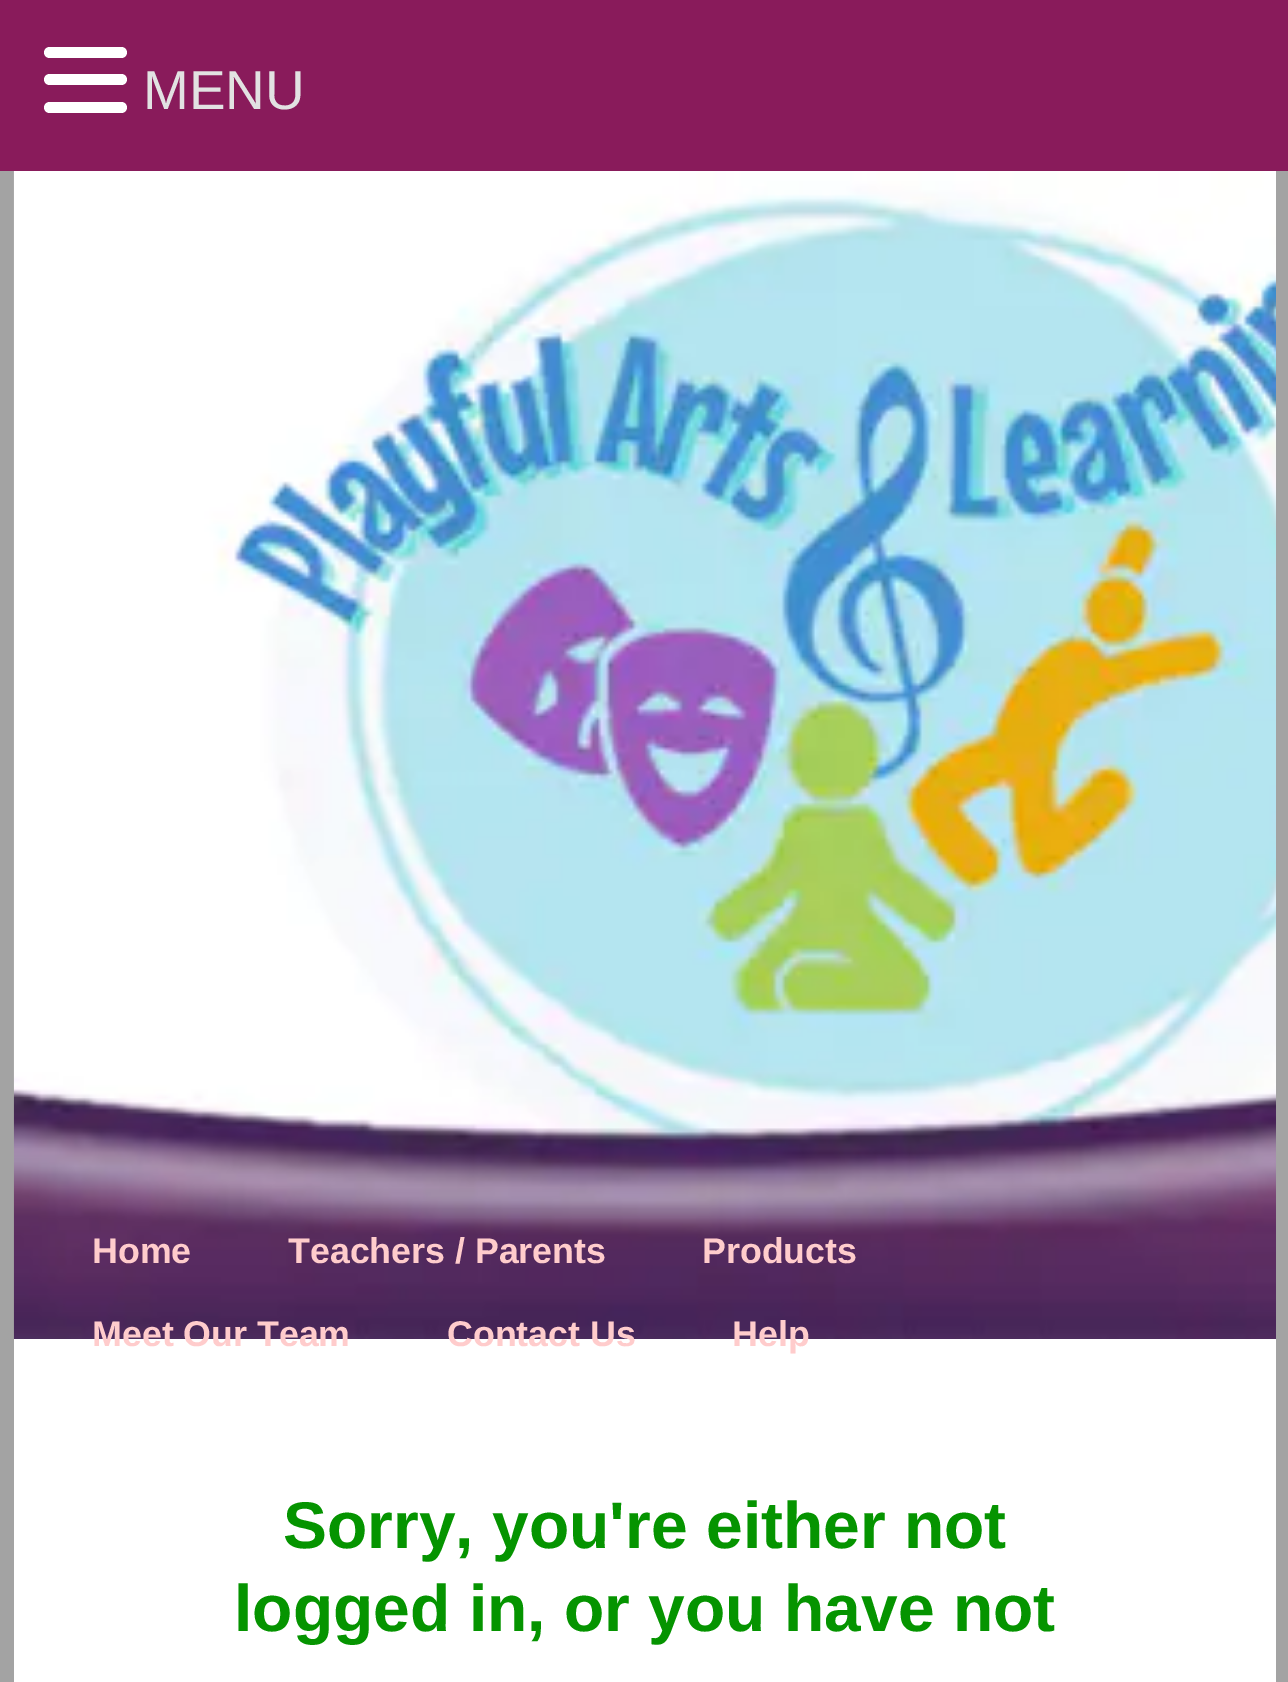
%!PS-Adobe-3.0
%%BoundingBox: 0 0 1288 1682
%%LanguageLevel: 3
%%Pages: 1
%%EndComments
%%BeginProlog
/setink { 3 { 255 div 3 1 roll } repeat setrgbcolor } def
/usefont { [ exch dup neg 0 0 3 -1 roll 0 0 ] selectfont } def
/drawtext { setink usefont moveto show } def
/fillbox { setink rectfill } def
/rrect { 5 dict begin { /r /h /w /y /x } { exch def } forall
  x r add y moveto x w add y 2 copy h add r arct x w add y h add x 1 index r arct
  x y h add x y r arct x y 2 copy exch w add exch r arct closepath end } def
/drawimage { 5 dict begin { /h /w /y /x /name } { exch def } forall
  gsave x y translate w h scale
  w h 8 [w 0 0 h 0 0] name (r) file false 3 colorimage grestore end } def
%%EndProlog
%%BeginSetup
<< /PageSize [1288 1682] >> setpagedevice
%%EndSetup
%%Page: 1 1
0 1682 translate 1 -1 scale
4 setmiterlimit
0 0 1288 1682 163 163 163 fillbox
0 0 1288 171 137 27 91 fillbox
255 255 255 setink
44 47 83 11 5.5 rrect fill
44 74 83 11 5.5 rrect fill
44 102 83 11 5.5 rrect fill
(MENU) 143 109 /LiberationSans-Regular 55 226 226 226 drawtext
(assets/img1.rgb) 13 171 1263 1168 drawimage
(Home) 92 1263 /LiberationSans-Bold 35.75 255 204 204 drawtext
(Teachers / Parents) 288 1263 /LiberationSans-Bold 35.75 255 204 204 drawtext
(Products) 702 1263 /LiberationSans-Bold 35.75 255 204 204 drawtext
14 1339 1262 343 255 255 255 fillbox
(Meet Our Team) 92 1346 /LiberationSans-Bold 35.75 255 204 204 drawtext
(Contact Us) 447 1346 /LiberationSans-Bold 35.75 255 204 204 drawtext
(Help) 732 1346 /LiberationSans-Bold 35.75 255 204 204 drawtext
(Sorry, you're either not) 283 1548 /LiberationSans-Bold 66 5 148 0 drawtext
(logged in, or you have not) 234 1631 /LiberationSans-Bold 66 5 148 0 drawtext
showpage
%%EOF
